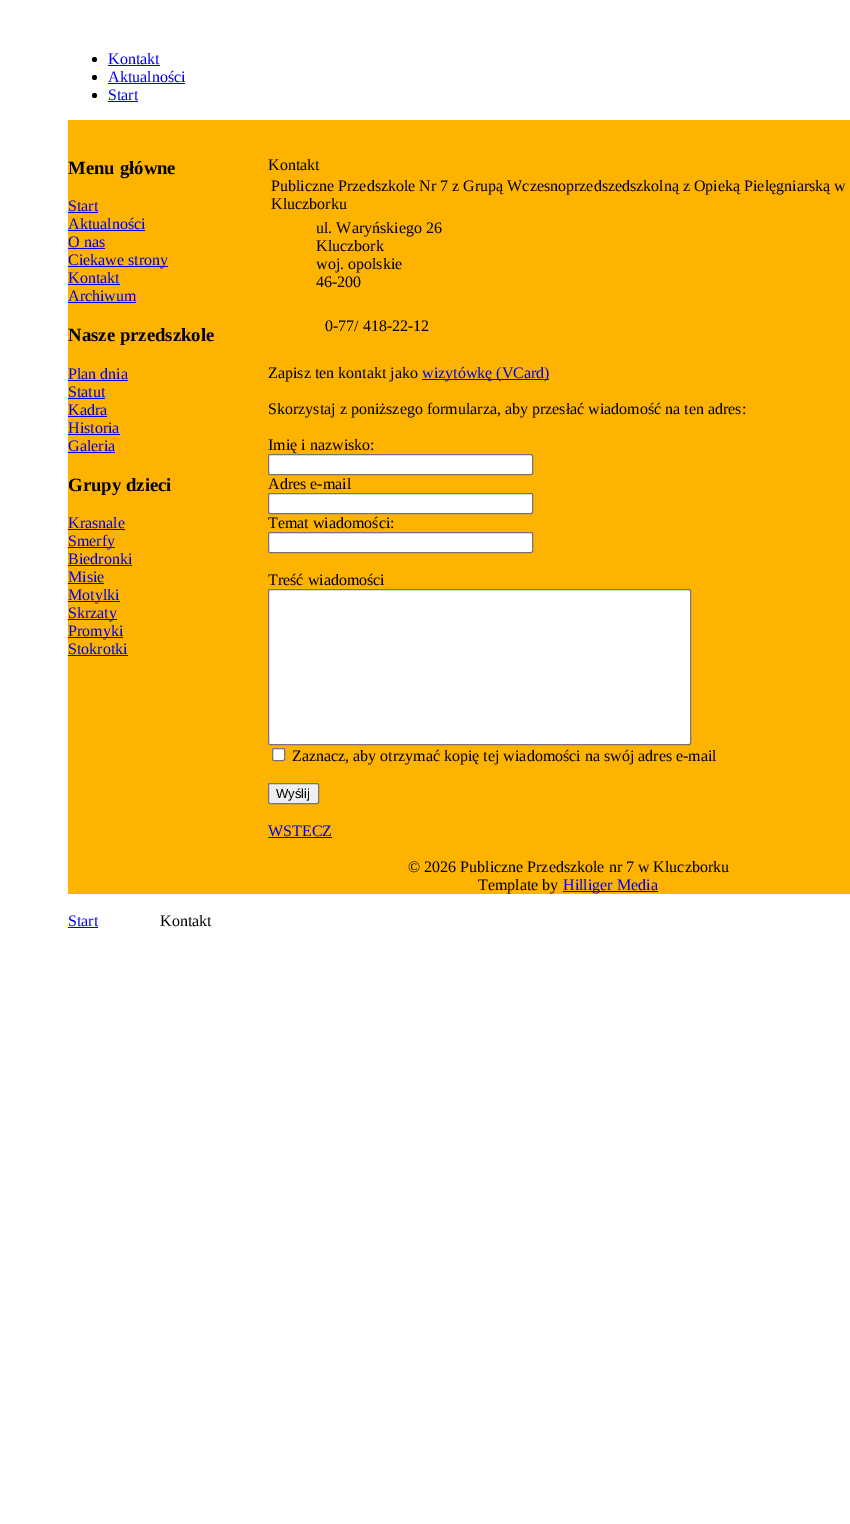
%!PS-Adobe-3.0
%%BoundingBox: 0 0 850 1524
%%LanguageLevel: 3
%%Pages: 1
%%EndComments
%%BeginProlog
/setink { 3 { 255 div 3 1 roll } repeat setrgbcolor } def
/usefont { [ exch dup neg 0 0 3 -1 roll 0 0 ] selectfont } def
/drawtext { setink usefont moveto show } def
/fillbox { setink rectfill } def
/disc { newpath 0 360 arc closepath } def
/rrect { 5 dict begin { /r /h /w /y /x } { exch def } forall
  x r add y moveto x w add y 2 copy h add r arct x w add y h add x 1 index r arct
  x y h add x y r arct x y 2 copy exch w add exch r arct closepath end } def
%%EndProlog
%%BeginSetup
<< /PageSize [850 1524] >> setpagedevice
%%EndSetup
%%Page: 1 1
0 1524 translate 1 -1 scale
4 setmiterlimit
0 0 850 1524 255 255 255 fillbox
0 0 0 setink
94.5 59.5 2.5 disc fill
(Kontakt) 108 64 /LiberationSerif-Regular 16 0 0 238 drawtext
108 65 52 1 0 0 238 fillbox
0 0 0 setink
94.5 77.5 2.5 disc fill
(Aktualności) 108 82 /LiberationSerif-Regular 16 0 0 238 drawtext
108 83 77 1 0 0 238 fillbox
0 0 0 setink
94.5 95.5 2.5 disc fill
(Start) 108 100 /LiberationSerif-Regular 16 0 0 238 drawtext
108 101 30 1 0 0 238 fillbox
68 120 782 774 255 179 1 fillbox
(Menu główne) 68 174 /LiberationSerif-Bold 18.75 0 0 0 drawtext
(Start) 68 211 /LiberationSerif-Regular 16 0 0 238 drawtext
68 212 30 1 0 0 238 fillbox
(Aktualności) 68 229 /LiberationSerif-Regular 16 0 0 238 drawtext
68 230 77 1 0 0 238 fillbox
(O nas) 68 247 /LiberationSerif-Regular 16 0 0 238 drawtext
68 248 37 1 0 0 238 fillbox
68 266 100 1 0 0 238 fillbox
(Ciekawe strony) 68 265 /LiberationSerif-Regular 16 0 0 238 drawtext
(Kontakt) 68 283 /LiberationSerif-Regular 16 0 0 238 drawtext
68 284 52 1 0 0 238 fillbox
(Archiwum) 68 301 /LiberationSerif-Regular 16 0 0 238 drawtext
68 302 68 1 0 0 238 fillbox
(Nasze przedszkole) 68 341 /LiberationSerif-Bold 18.75 0 0 0 drawtext
(Plan dnia) 68 379 /LiberationSerif-Regular 16 0 0 238 drawtext
68 380 60 1 0 0 238 fillbox
(Statut) 68 397 /LiberationSerif-Regular 16 0 0 238 drawtext
68 398 37 1 0 0 238 fillbox
(Kadra) 68 415 /LiberationSerif-Regular 16 0 0 238 drawtext
68 416 39 1 0 0 238 fillbox
(Historia) 68 433 /LiberationSerif-Regular 16 0 0 238 drawtext
68 434 52 1 0 0 238 fillbox
(Galeria) 68 451 /LiberationSerif-Regular 16 0 0 238 drawtext
68 452 47 1 0 0 238 fillbox
(Grupy dzieci) 68 491 /LiberationSerif-Bold 18.75 0 0 0 drawtext
(Krasnale) 68 528 /LiberationSerif-Regular 16 0 0 238 drawtext
68 529 57 1 0 0 238 fillbox
68 547 47 1 0 0 238 fillbox
(Smerfy) 68 546 /LiberationSerif-Regular 16 0 0 238 drawtext
(Biedronki) 68 564 /LiberationSerif-Regular 16 0 0 238 drawtext
68 565 64 1 0 0 238 fillbox
(Misie) 68 582 /LiberationSerif-Regular 16 0 0 238 drawtext
68 583 36 1 0 0 238 fillbox
68 601 52 1 0 0 238 fillbox
(Motylki) 68 600 /LiberationSerif-Regular 16 0 0 238 drawtext
68 619 49 1 0 0 238 fillbox
(Skrzaty) 68 618 /LiberationSerif-Regular 16 0 0 238 drawtext
68 637 55 1 0 0 238 fillbox
(Promyki) 68 636 /LiberationSerif-Regular 16 0 0 238 drawtext
(Stokrotki) 68 654 /LiberationSerif-Regular 16 0 0 238 drawtext
68 655 60 1 0 0 238 fillbox
(Kontakt) 268 170 /LiberationSerif-Regular 16 0 0 0 drawtext
(Publiczne Przedszkole Nr 7 z Grupą Wczesnoprzedszedszkolną z Opieką Pielęgniarską w) 271 191 /LiberationSerif-Regular 16 0 0 0 drawtext
(Kluczborku) 271 209 /LiberationSerif-Regular 16 0 0 0 drawtext
(ul. Waryńskiego 26) 316 233 /LiberationSerif-Regular 16 0 0 0 drawtext
(Kluczbork) 316 251 /LiberationSerif-Regular 16 0 0 0 drawtext
(woj. opolskie) 316 269 /LiberationSerif-Regular 16 0 0 0 drawtext
(46-200) 316 287 /LiberationSerif-Regular 16 0 0 0 drawtext
(0-77/ 418-22-12) 325 331 /LiberationSerif-Regular 16 0 0 0 drawtext
(Zapisz ten kontakt jako) 268 378 /LiberationSerif-Regular 16 0 0 0 drawtext
422 379 127 1 0 0 238 fillbox
(wizytówkę \(VCard\)) 422 378 /LiberationSerif-Regular 16 0 0 238 drawtext
(Skorzystaj z poniższego formularza, aby przesłać wiadomość na ten adres:) 268 414 /LiberationSerif-Regular 16 0 0 0 drawtext
(Imię i nazwisko:) 268 450 /LiberationSerif-Regular 16 0 0 0 drawtext
255 255 255 setink
268.5 454.5 264 20 1.5 rrect gsave fill grestore
118 118 118 setink
stroke
(Adres e-mail) 268 489 /LiberationSerif-Regular 16 0 0 0 drawtext
255 255 255 setink
268.5 493.5 264 20 1.5 rrect gsave fill grestore
118 118 118 setink
stroke
(Temat wiadomości:) 268 528 /LiberationSerif-Regular 16 0 0 0 drawtext
255 255 255 setink
268.5 532.5 264 20 1.5 rrect gsave fill grestore
118 118 118 setink
stroke
(Treść wiadomości) 268 585 /LiberationSerif-Regular 16 0 0 0 drawtext
255 255 255 setink
268.5 589.5 422 155 1.5 rrect gsave fill grestore
118 118 118 setink
stroke
255 255 255 setink
272.5 748.5 12 12 1.5 rrect gsave fill grestore
118 118 118 setink
stroke
(Zaznacz, aby otrzymać kopię tej wiadomości na swój adres e-mail) 292 761 /LiberationSerif-Regular 16 0 0 0 drawtext
239 239 239 setink
268.5 783.5 50 20 1.5 rrect gsave fill grestore
118 118 118 setink
stroke
(Wyślij) 276 798 /LiberationSans-Regular 13 0 0 0 drawtext
(WSTECZ) 268 836 /LiberationSerif-Regular 16 0 0 238 drawtext
268 837 64 1 0 0 238 fillbox
(© 2026 Publiczne Przedszkole nr 7 w Kluczborku) 408 872 /LiberationSerif-Regular 16 0 0 0 drawtext
(Template by) 478 890 /LiberationSerif-Regular 16 0 0 0 drawtext
563 891 95 1 0 0 238 fillbox
(Hilliger Media) 563 890 /LiberationSerif-Regular 16 0 0 238 drawtext
(Start) 68 926 /LiberationSerif-Regular 16 0 0 238 drawtext
68 927 30 1 0 0 238 fillbox
(Kontakt) 160 926 /LiberationSerif-Regular 16 0 0 0 drawtext
showpage
%%EOF
